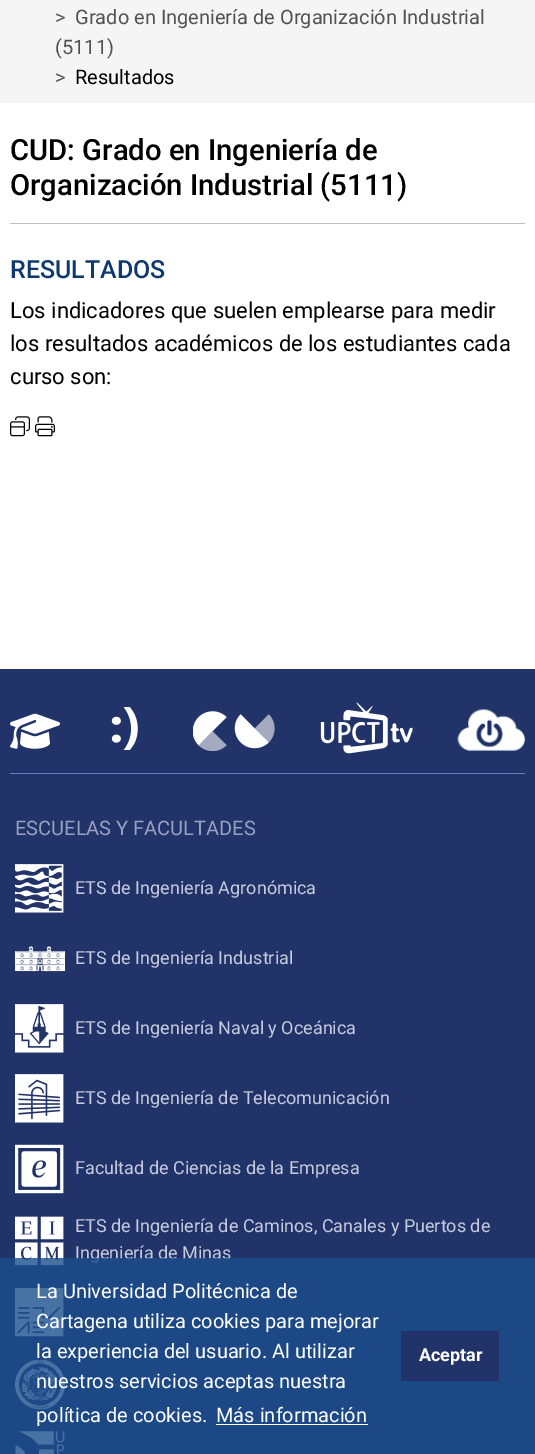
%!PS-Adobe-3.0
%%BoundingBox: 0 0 535 1454
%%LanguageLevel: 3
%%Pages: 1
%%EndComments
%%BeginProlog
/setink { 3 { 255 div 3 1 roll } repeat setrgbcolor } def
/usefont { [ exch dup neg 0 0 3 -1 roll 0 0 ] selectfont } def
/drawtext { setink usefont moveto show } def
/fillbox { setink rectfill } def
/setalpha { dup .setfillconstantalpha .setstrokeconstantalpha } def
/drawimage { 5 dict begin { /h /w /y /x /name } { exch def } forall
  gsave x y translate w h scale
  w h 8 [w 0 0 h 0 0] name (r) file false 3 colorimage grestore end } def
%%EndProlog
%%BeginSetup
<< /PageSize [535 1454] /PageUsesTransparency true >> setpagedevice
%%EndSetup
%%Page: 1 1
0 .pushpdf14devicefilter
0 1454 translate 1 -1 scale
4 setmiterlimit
0 0 535 1454 255 255 255 fillbox
0 0 535 103 245 245 245 fillbox
(>) 55 24 /Roboto-Regular 20 86 89 92 drawtext
(Grado en Ingeniería de Organización Industrial) 75 24 /Roboto-Regular 20 82 82 82 drawtext
(\(5111\)) 55 54 /Roboto-Regular 20 82 82 82 drawtext
(>) 55 84 /Roboto-Regular 20 86 89 92 drawtext
(Resultados) 75 84 /Roboto-Regular 20 0 0 0 drawtext
(CUD: Grado en Ingeniería de) 10 160 /Roboto-Medium 29.25 0 0 0 drawtext
(Organización Industrial \(5111\)) 10 195 /Roboto-Medium 29.25 0 0 0 drawtext
10 223 515 1 191 191 191 fillbox
(RESULTADOS) 10 278 /Roboto-Medium 25 14 57 111 drawtext
(Los indicadores que suelen emplearse para medir) 10 318 /Roboto-Regular 22 0 0 0 drawtext
(los resultados académicos de los estudiantes cada) 10 351 /Roboto-Regular 22 0 0 0 drawtext
(curso son:) 10 384 /Roboto-Regular 22 0 0 0 drawtext
(assets/img1.rgb) 10 416 20 21 drawimage
(assets/img2.rgb) 35 416 20 21 drawimage
0 669 535 785 34 51 105 fillbox
10 773 515 1 105 127 197 fillbox
(assets/img3.rgb) 10 713 50 36 drawimage
(assets/img4.rgb) 111 707 27 43 drawimage
(assets/img5.rgb) 193 711 82 40 drawimage
(assets/img6.rgb) 320 702 93 52 drawimage
(assets/img7.rgb) 457 709 68 42 drawimage
(ESCUELAS Y FACULTADES) 15 835 /Roboto-Regular 20 152 161 191 drawtext
(assets/img8.rgb) 15 864 49 49 drawimage
(ETS de Ingeniería Agronómica) 75 894 /Roboto-Regular 18 197 203 220 drawtext
(assets/img9.rgb) 15 946 50 26 drawimage
(ETS de Ingeniería Industrial) 75 964 /Roboto-Regular 18 197 203 220 drawtext
(assets/img10.rgb) 15 1004 49 49 drawimage
(ETS de Ingeniería Naval y Oceánica) 75 1034 /Roboto-Regular 18 197 203 220 drawtext
(assets/img11.rgb) 15 1074 49 49 drawimage
(ETS de Ingeniería de Telecomunicación) 75 1104 /Roboto-Regular 18 197 203 220 drawtext
(assets/img12.rgb) 15 1144 49 50 drawimage
(Facultad de Ciencias de la Empresa) 75 1174 /Roboto-Regular 18 197 203 220 drawtext
(assets/img13.rgb) 15 1216 49 50 drawimage
(ETS de Ingeniería de Caminos, Canales y Puertos de) 75 1232 /Roboto-Regular 18 197 203 220 drawtext
(Ingeniería de Minas) 75 1259 /Roboto-Regular 18 197 203 220 drawtext
(assets/img14.rgb) 15 1288 49 49 drawimage
(assets/img15.rgb) 15 1360 50 50 drawimage
(assets/img16.rgb) 15 1431 50 23 drawimage
0.8 setalpha
0 1258 535 196 26 77 141 fillbox
1 setalpha
(La Universidad Politécnica de) 36 1298 /Roboto-Regular 20 255 255 255 drawtext
(Cartagena utiliza cookies para mejorar) 36 1328 /Roboto-Regular 20 255 255 255 drawtext
(la experiencia del usuario. Al utilizar) 36 1358 /Roboto-Regular 20 255 255 255 drawtext
(nuestros servicios aceptas nuestra) 36 1388 /Roboto-Regular 20 255 255 255 drawtext
(política de cookies.) 36 1422 /Roboto-Regular 20 255 255 255 drawtext
(Más información) 216 1422 /Roboto-Regular 20 255 255 255 drawtext
216 1424 152 1 255 255 255 fillbox
401 1331 98 50 34 51 105 fillbox
(Aceptar) 419 1361 /Roboto-Bold 18 255 255 255 drawtext
.poppdf14devicefilter showpage
%%EOF
